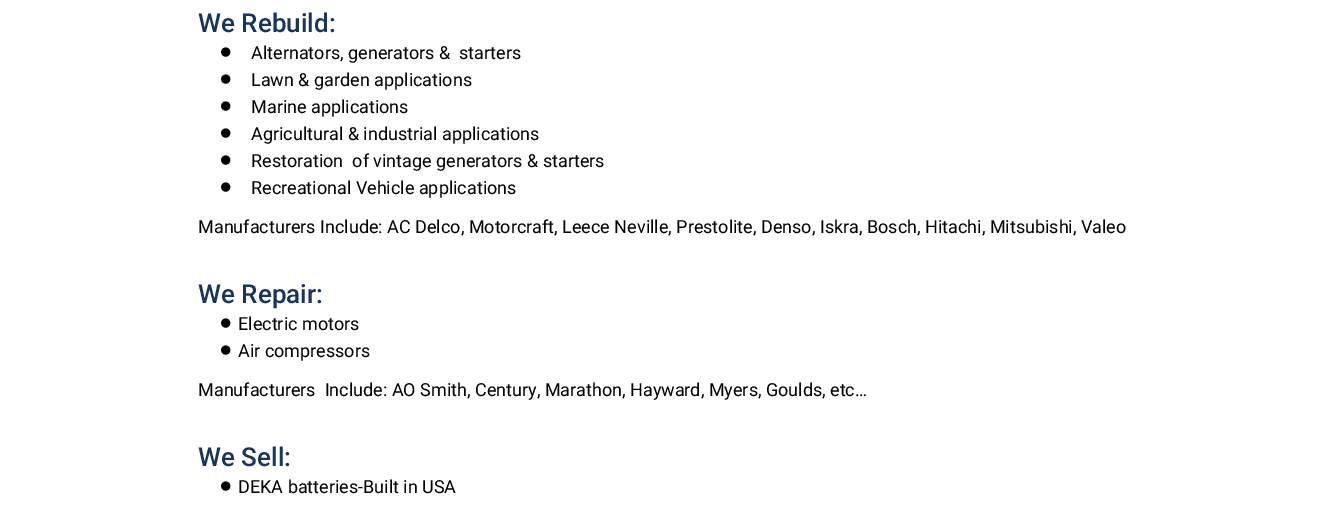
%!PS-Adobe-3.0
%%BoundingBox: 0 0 1336 505
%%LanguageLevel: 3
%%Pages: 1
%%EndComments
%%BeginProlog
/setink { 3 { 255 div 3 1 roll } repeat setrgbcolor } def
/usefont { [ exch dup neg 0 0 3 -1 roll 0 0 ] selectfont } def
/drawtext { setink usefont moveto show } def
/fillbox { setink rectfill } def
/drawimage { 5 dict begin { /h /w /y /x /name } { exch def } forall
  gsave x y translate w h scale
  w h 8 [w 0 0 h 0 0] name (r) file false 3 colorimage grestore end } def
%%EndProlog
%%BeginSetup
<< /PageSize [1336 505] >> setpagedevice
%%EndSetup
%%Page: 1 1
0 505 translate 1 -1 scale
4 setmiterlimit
0 0 1336 505 255 255 255 fillbox
(We Rebuild:) 198 32 /Roboto-Medium 26 25 53 89 drawtext
(assets/img1.rgb) 221 47 10 10 drawimage
(Alternators, generators &  starters) 251 59 /Roboto-Regular 18 0 0 0 drawtext
(assets/img1.rgb) 221 74 10 10 drawimage
(Lawn & garden applications) 251 86 /Roboto-Regular 18 0 0 0 drawtext
(assets/img1.rgb) 221 101 10 10 drawimage
(Marine applications) 251 113 /Roboto-Regular 18 0 0 0 drawtext
(assets/img1.rgb) 221 128 10 10 drawimage
(Agricultural & industrial applications) 251 140 /Roboto-Regular 18 0 0 0 drawtext
(assets/img1.rgb) 221 155 10 10 drawimage
(Restoration  of vintage generators & starters) 251 167 /Roboto-Regular 18 0 0 0 drawtext
(assets/img1.rgb) 221 182 10 10 drawimage
(Recreational Vehicle applications) 251 194 /Roboto-Regular 18 0 0 0 drawtext
(Manufacturers Include: AC Delco, Motorcraft, Leece Neville, Prestolite, Denso, Iskra, Bosch, Hitachi, Mitsubishi, Valeo) 198 233 /Roboto-Regular 18 0 0 0 drawtext
(We Repair:) 198 303 /Roboto-Medium 26 25 53 89 drawtext
(assets/img1.rgb) 221 318 10 10 drawimage
(Electric motors) 238 330 /Roboto-Regular 18 0 0 0 drawtext
(assets/img1.rgb) 221 345 10 10 drawimage
(Air compressors) 238 357 /Roboto-Regular 18 0 0 0 drawtext
(Manufacturers  Include: AO Smith, Century, Marathon, Hayward, Myers, Goulds, etc…) 198 396 /Roboto-Regular 18 0 0 0 drawtext
(We Sell:) 198 466 /Roboto-Medium 26 25 53 89 drawtext
(assets/img1.rgb) 221 481 10 10 drawimage
(DEKA batteries-Built in USA) 238 493 /Roboto-Regular 18 0 0 0 drawtext
showpage
%%EOF
